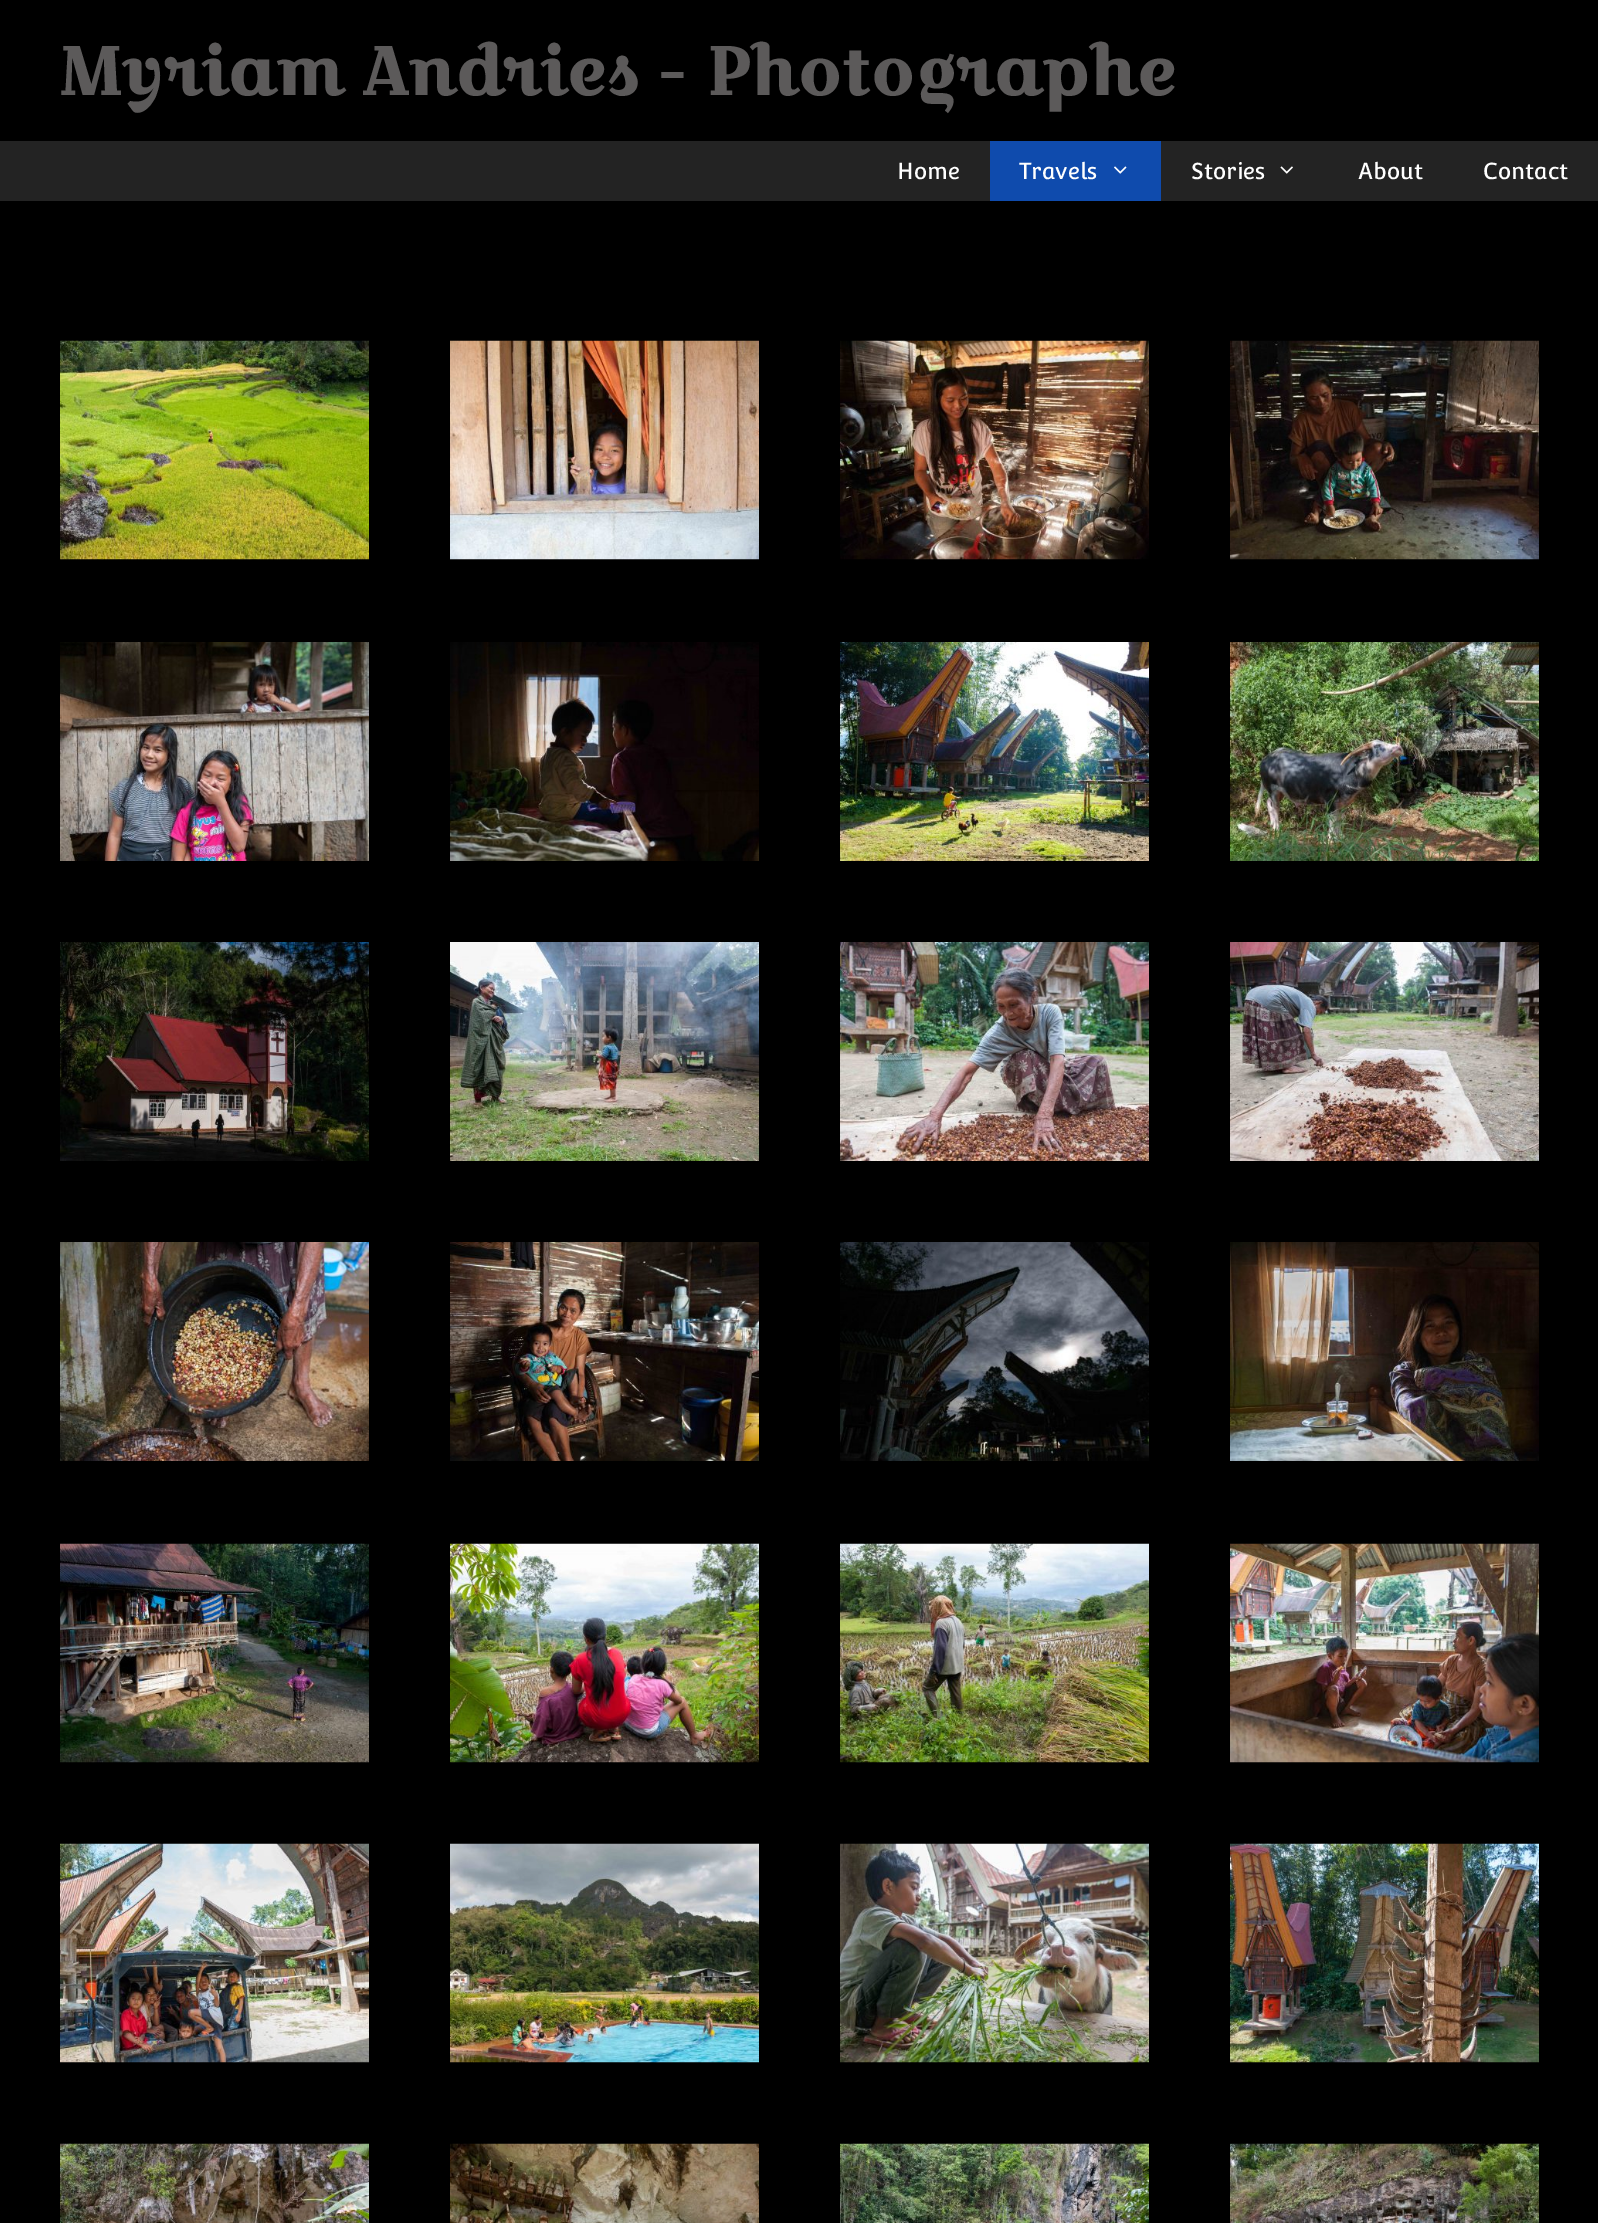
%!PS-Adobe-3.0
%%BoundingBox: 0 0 1598 2223
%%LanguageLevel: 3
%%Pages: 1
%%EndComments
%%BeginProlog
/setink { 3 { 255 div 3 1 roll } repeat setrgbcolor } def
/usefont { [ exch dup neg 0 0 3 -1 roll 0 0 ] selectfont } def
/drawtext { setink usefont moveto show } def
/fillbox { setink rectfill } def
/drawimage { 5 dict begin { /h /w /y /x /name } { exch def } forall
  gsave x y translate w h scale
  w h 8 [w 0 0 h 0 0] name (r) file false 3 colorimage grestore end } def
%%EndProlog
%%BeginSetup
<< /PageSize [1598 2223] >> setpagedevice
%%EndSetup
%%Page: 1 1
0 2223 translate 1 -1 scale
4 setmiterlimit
0 0 1598 2223 0 0 0 fillbox
(Myriam Andries - Photographe) 60 95 /CroissantOne-Bold 67.5 92 90 90 drawtext
0 141 1598 60 35 35 35 fillbox
(Home) 897 179 /Convergence-Regular 22.5 255 255 255 drawtext
990 141 171 60 15 75 173 fillbox
(Travels) 1019 179 /Convergence-Regular 22.5 255 255 255 drawtext
(assets/img1.rgb) 1114 166 13 8 drawimage
(Stories) 1191 179 /Convergence-Regular 22.5 255 255 255 drawtext
(assets/img2.rgb) 1280 166 13 8 drawimage
(About) 1358 179 /Convergence-Regular 22.5 255 255 255 drawtext
(Contact) 1483 179 /Convergence-Regular 22.5 255 255 255 drawtext
(assets/img3.rgb) 60 340 309 220 drawimage
(assets/img4.rgb) 450 340 309 220 drawimage
(assets/img5.rgb) 840 340 309 220 drawimage
(assets/img6.rgb) 1230 340 309 220 drawimage
(assets/img7.rgb) 60 642 309 219 drawimage
(assets/img8.rgb) 450 642 309 219 drawimage
(assets/img9.rgb) 840 642 309 219 drawimage
(assets/img10.rgb) 1230 642 309 219 drawimage
(assets/img11.rgb) 60 942 309 219 drawimage
(assets/img12.rgb) 450 942 309 219 drawimage
(assets/img13.rgb) 840 942 309 219 drawimage
(assets/img14.rgb) 1230 942 309 219 drawimage
(assets/img15.rgb) 60 1242 309 219 drawimage
(assets/img16.rgb) 450 1242 309 219 drawimage
(assets/img17.rgb) 840 1242 309 219 drawimage
(assets/img18.rgb) 1230 1242 309 219 drawimage
(assets/img19.rgb) 60 1543 309 220 drawimage
(assets/img20.rgb) 450 1543 309 220 drawimage
(assets/img21.rgb) 840 1543 309 220 drawimage
(assets/img22.rgb) 1230 1543 309 220 drawimage
(assets/img23.rgb) 60 1843 309 220 drawimage
(assets/img24.rgb) 450 1843 309 220 drawimage
(assets/img25.rgb) 840 1843 309 220 drawimage
(assets/img26.rgb) 1230 1843 309 220 drawimage
(assets/img27.rgb) 60 2143 309 80 drawimage
(assets/img28.rgb) 450 2143 309 80 drawimage
(assets/img29.rgb) 840 2143 309 80 drawimage
(assets/img30.rgb) 1230 2143 309 80 drawimage
showpage
%%EOF
